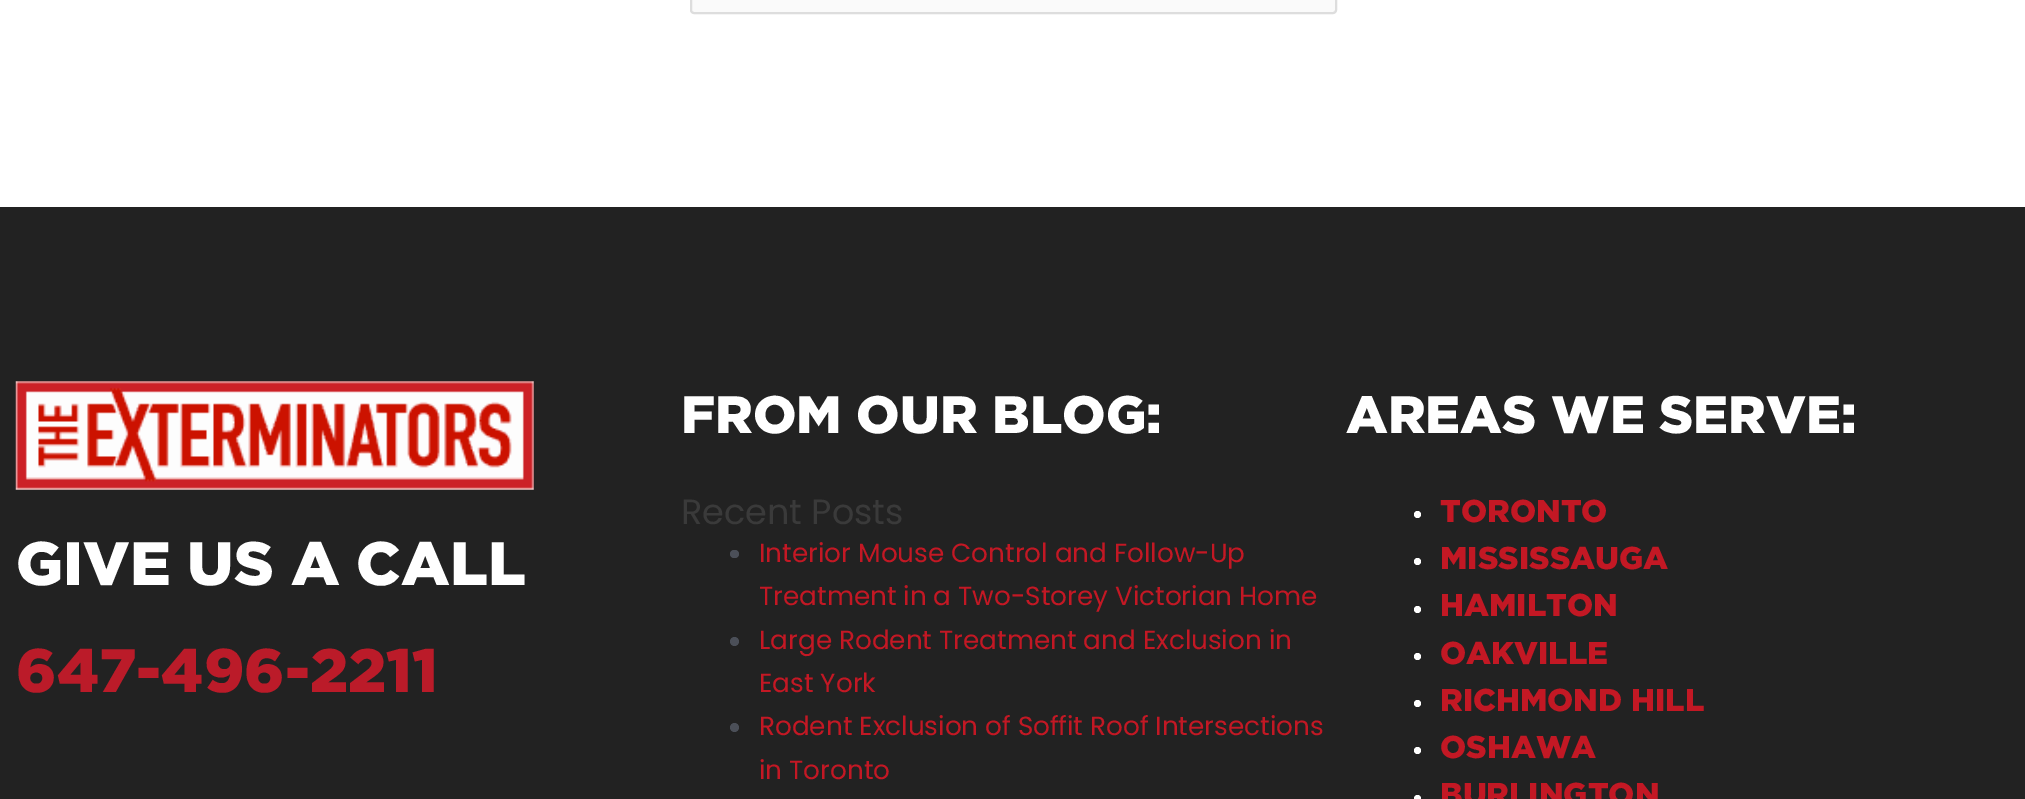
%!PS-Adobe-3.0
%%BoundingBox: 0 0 2025 799
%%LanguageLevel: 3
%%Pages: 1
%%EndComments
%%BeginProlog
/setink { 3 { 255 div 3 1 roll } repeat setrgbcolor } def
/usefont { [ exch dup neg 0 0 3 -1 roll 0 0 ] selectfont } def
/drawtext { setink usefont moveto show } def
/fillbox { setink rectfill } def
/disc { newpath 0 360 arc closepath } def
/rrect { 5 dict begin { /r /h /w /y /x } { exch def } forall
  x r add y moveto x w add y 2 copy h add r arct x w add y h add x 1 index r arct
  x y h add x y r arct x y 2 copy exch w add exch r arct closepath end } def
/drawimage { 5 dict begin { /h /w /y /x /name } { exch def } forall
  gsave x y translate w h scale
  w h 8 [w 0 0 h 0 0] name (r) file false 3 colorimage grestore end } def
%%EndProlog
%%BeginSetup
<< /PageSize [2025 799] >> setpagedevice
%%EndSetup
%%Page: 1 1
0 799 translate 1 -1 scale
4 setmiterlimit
0 0 2025 799 255 255 255 fillbox
250 250 250 setink
691 -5 645 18 3 rrect gsave fill grestore
221 221 221 setink
2 setlinewidth
stroke
0 207 2025 592 34 34 34 fillbox
(assets/img1.rgb) 15 381 519 109 drawimage
(GIVE US A CALL) 16 585 /Gotham-Black 61.25 255 255 255 drawtext
(647-496-2211) 16 692 /Gotham-Black 61.25 187 27 41 drawtext
(FROM OUR BLOG:) 681 433 /Gotham-Black 52.5 255 255 255 drawtext
(Recent Posts) 681 524 /Poppins-Regular 35 58 58 58 drawtext
75 79 88 setink
730 550 9 8 4 rrect fill
(Interior Mouse Control and Follow-Up) 759 562 /Poppins-Regular 26.25 195 24 36 drawtext
(Treatment in a Two-Storey Victorian Home) 759 605 /Poppins-Regular 26.25 195 24 36 drawtext
75 79 88 setink
734.5 641.5 4.5 disc fill
(Large Rodent Treatment and Exclusion in) 759 649 /Poppins-Regular 26.25 195 24 36 drawtext
(East York) 759 692 /Poppins-Regular 26.25 195 24 36 drawtext
75 79 88 setink
734.5 727.5 4.5 disc fill
(Rodent Exclusion of Soffit Roof Intersections) 759 735 /Poppins-Regular 26.25 195 24 36 drawtext
(in Toronto) 759 779 /Poppins-Regular 26.25 195 24 36 drawtext
(AREAS WE SERVE:) 1346 433 /Gotham-Black 52.5 255 255 255 drawtext
1417.5 514.5 3.5 disc fill
(TORONTO) 1440 522 /Gotham-Black 31.5 195 24 36 drawtext
255 255 255 setink
1417.5 561.5 3.5 disc fill
(MISSISSAUGA) 1440 569 /Gotham-Black 31.5 195 24 36 drawtext
255 255 255 setink
1417.5 609.5 3.5 disc fill
(HAMILTON) 1440 616 /Gotham-Black 31.5 195 24 36 drawtext
255 255 255 setink
1417.5 656.5 3.5 disc fill
(OAKVILLE) 1440 664 /Gotham-Black 31.5 195 24 36 drawtext
255 255 255 setink
1417.5 703.5 3.5 disc fill
(RICHMOND HILL) 1440 711 /Gotham-Black 31.5 195 24 36 drawtext
255 255 255 setink
1417.5 750.5 3.5 disc fill
(OSHAWA) 1440 758 /Gotham-Black 31.5 195 24 36 drawtext
255 255 255 setink
1417.5 798.5 3.5 disc fill
(BURLINGTON) 1440 805 /Gotham-Black 31.5 195 24 36 drawtext
showpage
%%EOF
